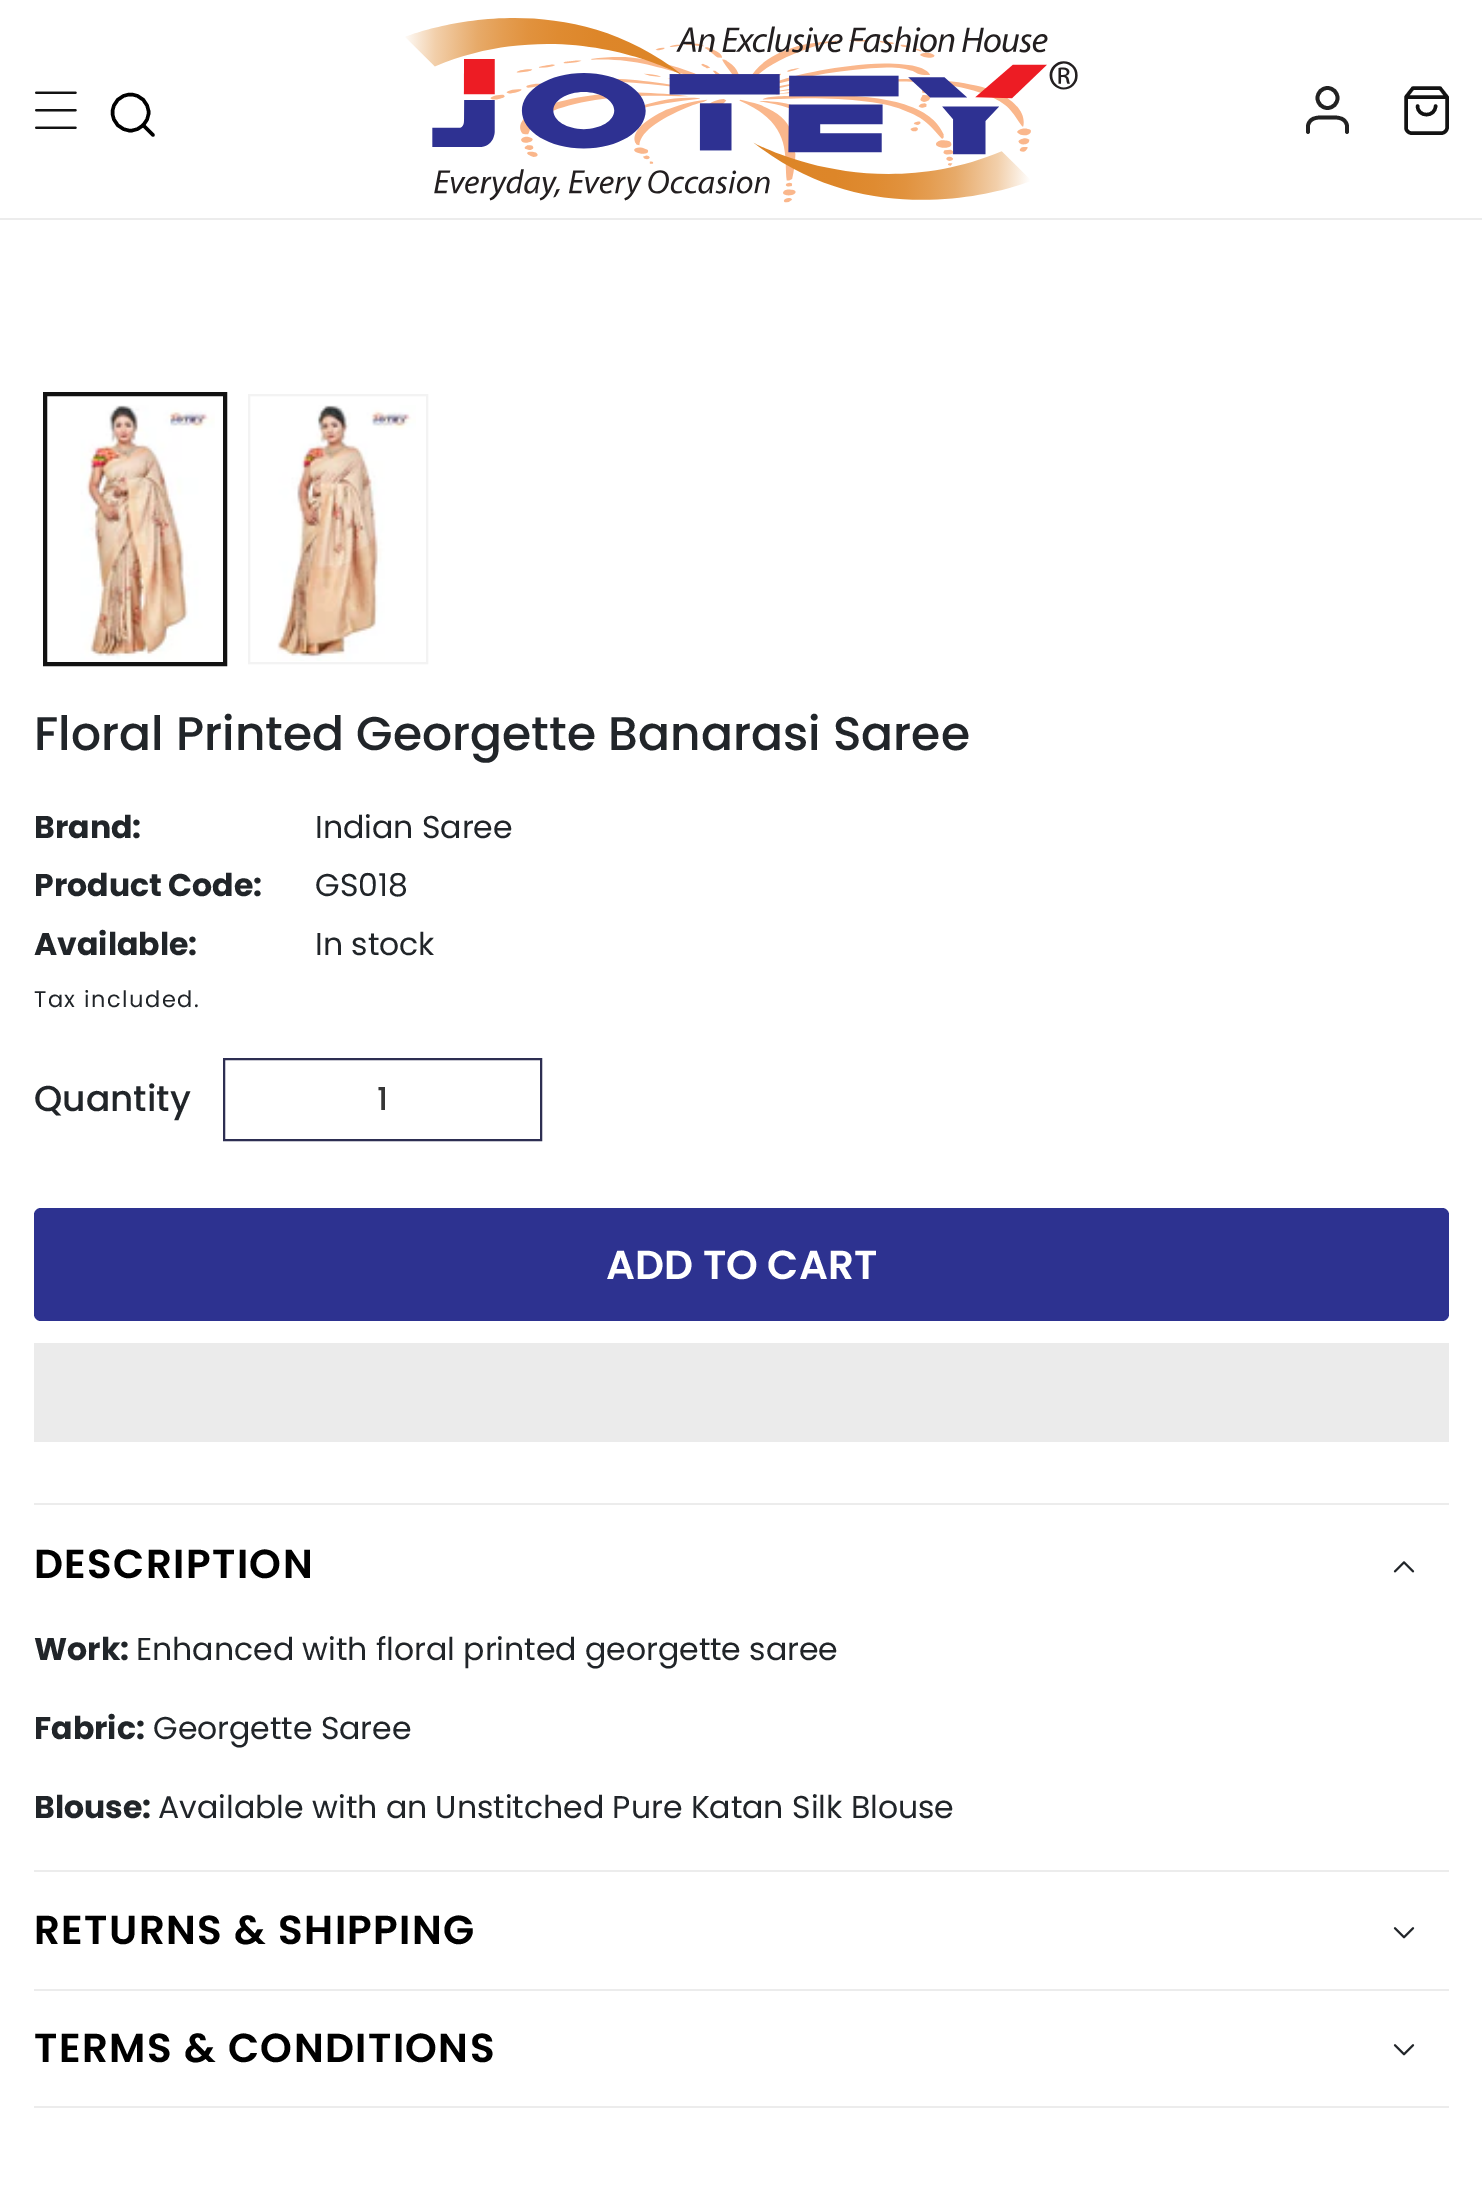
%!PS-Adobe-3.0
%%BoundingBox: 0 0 1482 2196
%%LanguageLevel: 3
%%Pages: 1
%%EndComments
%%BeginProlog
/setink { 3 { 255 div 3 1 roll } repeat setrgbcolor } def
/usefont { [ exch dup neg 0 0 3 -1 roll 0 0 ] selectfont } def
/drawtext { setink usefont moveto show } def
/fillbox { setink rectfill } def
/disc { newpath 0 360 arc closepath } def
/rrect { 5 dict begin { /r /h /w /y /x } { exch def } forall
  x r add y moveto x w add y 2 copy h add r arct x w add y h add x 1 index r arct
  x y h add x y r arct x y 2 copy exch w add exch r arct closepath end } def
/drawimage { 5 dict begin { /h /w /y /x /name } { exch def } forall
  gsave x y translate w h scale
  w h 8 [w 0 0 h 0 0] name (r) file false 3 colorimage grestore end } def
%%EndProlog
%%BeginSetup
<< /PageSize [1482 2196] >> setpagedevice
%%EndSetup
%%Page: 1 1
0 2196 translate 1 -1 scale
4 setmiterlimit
0 0 1482 2196 255 255 255 fillbox
0 218 1482 2 236 236 236 fillbox
(assets/img1.rgb) 35 91 42 38 drawimage
0 0 0 setink
3.4 setlinewidth
130.5 112.5 18 disc stroke
1 setlinecap
1 setlinejoin
153 135 moveto 143 125 lineto stroke
(assets/img2.rgb) 405 18 673 185 drawimage
34 34 34 setink
3.7 setlinewidth
1347 132 moveto 1347 125.5 lineto 1345 116 1334.5 117.5 1327.5 117.5 curveto 1320.5 117.5 1310 116 1308 125.5 curveto 1308 132 lineto stroke
0 setlinecap
0 setlinejoin
1327.5 98 10 disc stroke
18 18 18 setink
3.4 setlinewidth
1 setlinecap
1 setlinejoin
1413 88 moveto 1406 97 lineto 1406 128 lineto 1406 130.5 1408.5 133 1411 133 curveto 1442 133 lineto 1444.5 133 1447 130.5 1447 128 curveto 1447 97 lineto 1440 88 lineto closepath 1406 97 moveto 1447 97 lineto 1435.5 106 moveto 1435.5 117.5 1417.5 117.5 1417.5 106 curveto stroke
2 setlinewidth
0 setlinecap
0 setlinejoin
44 393 182 272 rectstroke
46 395 178 268 rectstroke
(assets/img3.rgb) 80 405 135 255 drawimage
243 243 243 setink
249 395 178 268 rectstroke
(assets/img4.rgb) 277 405 139 256 drawimage
(Floral Printed Georgette Banarasi Saree) 34 750 /Poppins-Medium 47.25 33 37 41 drawtext
(Brand:) 34 838 /Poppins-Bold 31.5 33 37 41 drawtext
(Indian Saree) 315 838 /Poppins-Regular 31.5 33 37 41 drawtext
(Product Code:) 34 896 /Poppins-Bold 31.5 33 37 41 drawtext
(GS018) 315 896 /Poppins-Regular 31.5 33 37 41 drawtext
(Available:) 34 955 /Poppins-Bold 31.5 33 37 41 drawtext
(In stock) 315 955 /Poppins-Regular 31.5 33 37 41 drawtext
/Poppins-Regular 22.5 usefont
34 1007 moveto 1.5 0 (Tax included.) ashow
(Quantity) 34 1111 /Poppins-Medium 36 33 37 41 drawtext
45 46 82 setink
224 1059 317 81 rectstroke
(1) 377 1110 /Poppins-Medium 31.5 54 54 54 drawtext
45 50 144 setink
34 1208 1415 113 7 rrect fill
(ADD TO CART) 606 1279 /Poppins-SemiBold 40.5 255 255 255 drawtext
34 1343 1415 99 235 235 235 fillbox
34 1503 1415 2 236 236 236 fillbox
34 1870 1415 2 236 236 236 fillbox
0 0 0 setink
34 1578 moveto 1.4 0 (DESCRIPTION) ashow
(assets/img5.rgb) 1393 1561 22 12 drawimage
(Work:) 34 1660 /Poppins-Bold 31.5 33 37 41 drawtext
(Enhanced with floral printed georgette saree) 136 1660 /Poppins-Regular 31.5 33 37 41 drawtext
(Fabric:) 34 1739 /Poppins-Bold 31.5 33 37 41 drawtext
(Georgette Saree) 153 1739 /Poppins-Regular 31.5 33 37 41 drawtext
(Blouse:) 34 1818 /Poppins-Bold 31.5 33 37 41 drawtext
(Available with an Unstitched Pure Katan Silk Blouse) 158 1818 /Poppins-Regular 31.5 33 37 41 drawtext
34 1989 1415 2 236 236 236 fillbox
/Poppins-SemiBold 40.5 usefont
0 0 0 setink
34 1944 moveto 1.4 0 (RETURNS & SHIPPING) ashow
(assets/img6.rgb) 1393 1927 22 12 drawimage
34 2106 1415 2 236 236 236 fillbox
0 0 0 setink
34 2062 moveto 1.4 0 (TERMS & CONDITIONS) ashow
(assets/img6.rgb) 1393 2044 22 12 drawimage
showpage
%%EOF
